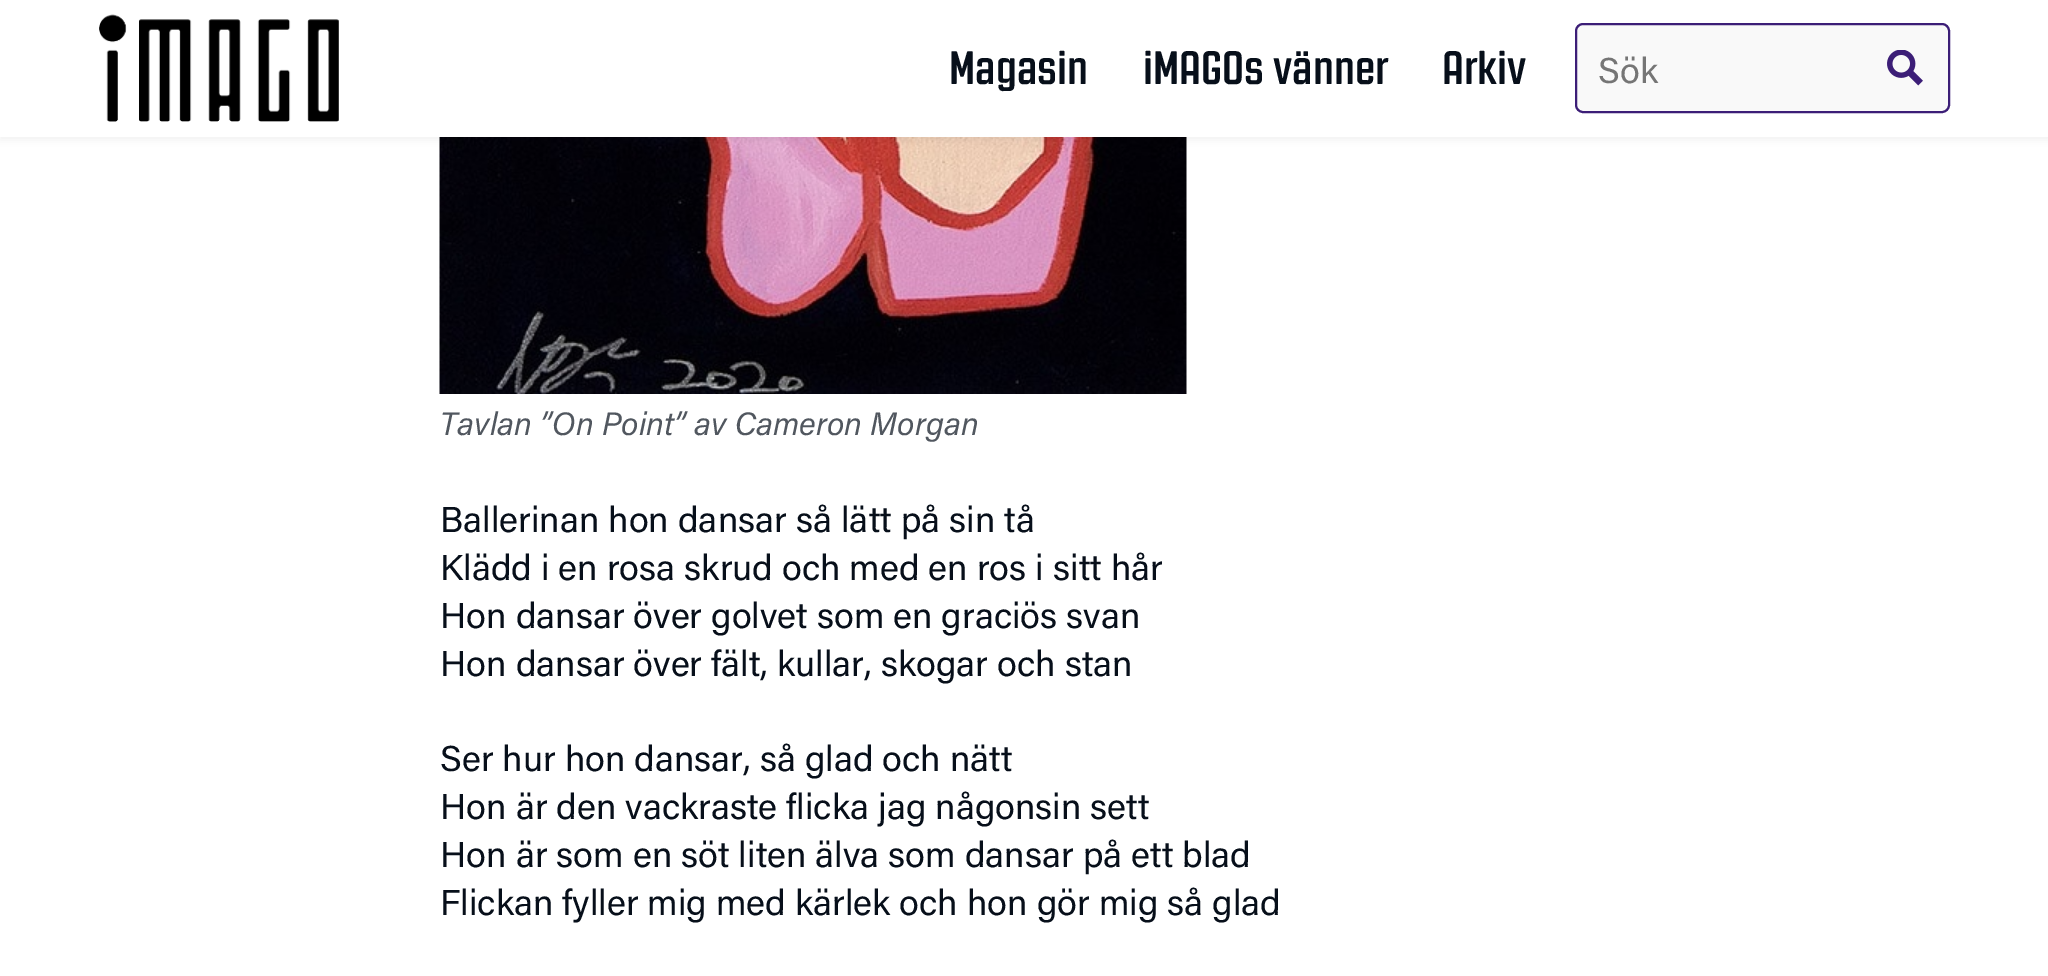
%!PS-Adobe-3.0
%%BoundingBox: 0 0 2048 976
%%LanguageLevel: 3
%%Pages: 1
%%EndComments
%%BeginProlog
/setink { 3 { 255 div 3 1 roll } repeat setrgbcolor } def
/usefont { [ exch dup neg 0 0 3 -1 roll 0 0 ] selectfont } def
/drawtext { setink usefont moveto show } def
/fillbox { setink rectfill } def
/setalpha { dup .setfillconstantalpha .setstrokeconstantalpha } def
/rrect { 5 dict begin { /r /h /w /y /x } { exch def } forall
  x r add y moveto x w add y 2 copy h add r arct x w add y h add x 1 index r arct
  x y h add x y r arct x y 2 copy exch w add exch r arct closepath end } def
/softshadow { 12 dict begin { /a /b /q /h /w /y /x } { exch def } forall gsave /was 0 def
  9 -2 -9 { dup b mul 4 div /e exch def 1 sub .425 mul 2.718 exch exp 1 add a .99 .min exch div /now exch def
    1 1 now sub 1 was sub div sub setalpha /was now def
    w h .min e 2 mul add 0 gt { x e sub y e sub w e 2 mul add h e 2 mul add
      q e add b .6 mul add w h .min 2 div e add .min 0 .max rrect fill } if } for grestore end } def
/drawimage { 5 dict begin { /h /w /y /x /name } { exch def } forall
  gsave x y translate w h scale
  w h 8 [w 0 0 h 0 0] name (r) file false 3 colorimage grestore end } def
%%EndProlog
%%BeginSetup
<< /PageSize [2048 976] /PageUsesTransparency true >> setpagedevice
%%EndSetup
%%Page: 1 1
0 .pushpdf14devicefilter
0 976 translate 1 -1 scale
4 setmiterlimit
0 0 2048 976 255 255 255 fillbox
(assets/img3.rgb) 439 137 748 257 drawimage
0 0 0 setink
0 3 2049 137 0 4 0.06 softshadow
0 0 2048 137 255 255 255 fillbox
(assets/img1.rgb) 99 14 240 108 drawimage
(Magasin) 949 84 /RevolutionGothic-Bold 46.75 7 15 26 drawtext
(iMAGOs vänner) 1143 84 /RevolutionGothic-Bold 46.75 7 15 26 drawtext
(Arkiv) 1442 84 /RevolutionGothic-Bold 46.75 7 15 26 drawtext
249 249 249 setink
1576 24 373 88 7 rrect gsave fill grestore
60 30 119 setink
2 setlinewidth
stroke
(Sök) 1598 83 /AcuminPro-Regular 36 117 117 117 drawtext
(assets/img2.rgb) 1887 50 36 36 drawimage
(Tavlan ”On Point” av Cameron Morgan) 440 435 /AcuminPro-Italic 32.4 81 87 95 drawtext
(Ballerinan hon dansar så lätt på sin tå) 440 532 /AcuminPro-Regular 36 7 15 26 drawtext
(Klädd i en rosa skrud och med en ros i sitt hår) 440 580 /AcuminPro-Regular 36 7 15 26 drawtext
(Hon dansar över golvet som en graciös svan) 440 628 /AcuminPro-Regular 36 7 15 26 drawtext
(Hon dansar över fält, kullar, skogar och stan) 440 676 /AcuminPro-Regular 36 7 15 26 drawtext
(Ser hur hon dansar, så glad och nätt) 440 771 /AcuminPro-Regular 36 7 15 26 drawtext
(Hon är den vackraste flicka jag någonsin sett) 440 819 /AcuminPro-Regular 36 7 15 26 drawtext
(Hon är som en söt liten älva som dansar på ett blad) 440 867 /AcuminPro-Regular 36 7 15 26 drawtext
(Flickan fyller mig med kärlek och hon gör mig så glad) 440 915 /AcuminPro-Regular 36 7 15 26 drawtext
.poppdf14devicefilter showpage
%%EOF
